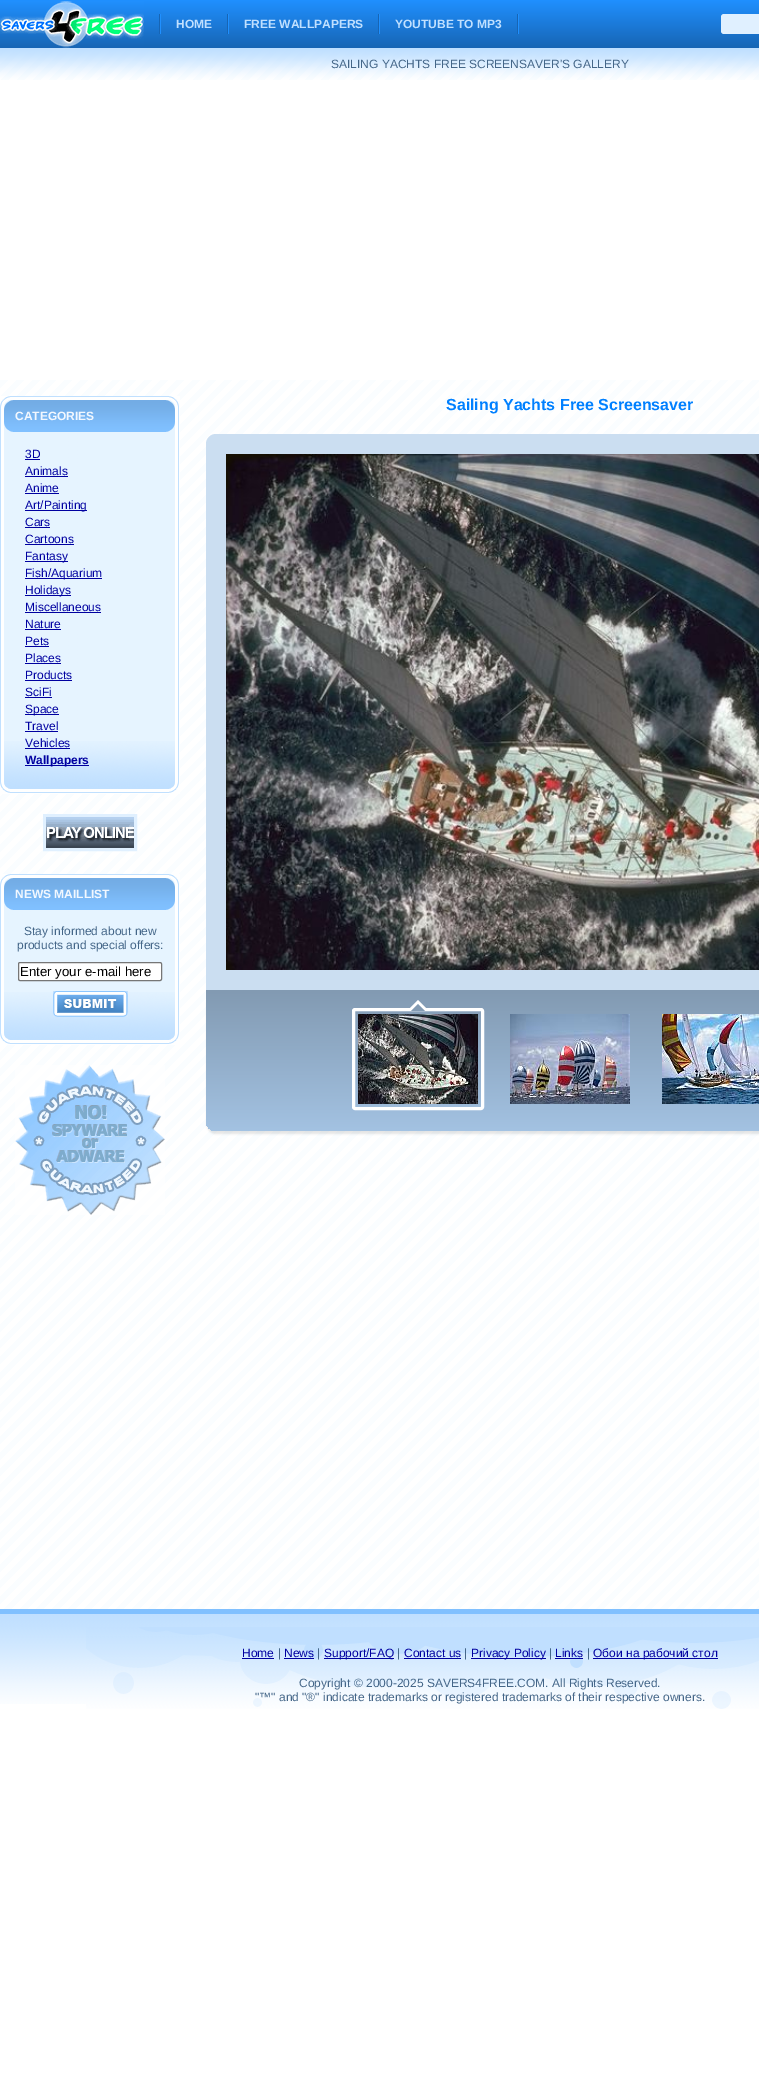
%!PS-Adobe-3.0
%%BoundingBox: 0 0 759 2091
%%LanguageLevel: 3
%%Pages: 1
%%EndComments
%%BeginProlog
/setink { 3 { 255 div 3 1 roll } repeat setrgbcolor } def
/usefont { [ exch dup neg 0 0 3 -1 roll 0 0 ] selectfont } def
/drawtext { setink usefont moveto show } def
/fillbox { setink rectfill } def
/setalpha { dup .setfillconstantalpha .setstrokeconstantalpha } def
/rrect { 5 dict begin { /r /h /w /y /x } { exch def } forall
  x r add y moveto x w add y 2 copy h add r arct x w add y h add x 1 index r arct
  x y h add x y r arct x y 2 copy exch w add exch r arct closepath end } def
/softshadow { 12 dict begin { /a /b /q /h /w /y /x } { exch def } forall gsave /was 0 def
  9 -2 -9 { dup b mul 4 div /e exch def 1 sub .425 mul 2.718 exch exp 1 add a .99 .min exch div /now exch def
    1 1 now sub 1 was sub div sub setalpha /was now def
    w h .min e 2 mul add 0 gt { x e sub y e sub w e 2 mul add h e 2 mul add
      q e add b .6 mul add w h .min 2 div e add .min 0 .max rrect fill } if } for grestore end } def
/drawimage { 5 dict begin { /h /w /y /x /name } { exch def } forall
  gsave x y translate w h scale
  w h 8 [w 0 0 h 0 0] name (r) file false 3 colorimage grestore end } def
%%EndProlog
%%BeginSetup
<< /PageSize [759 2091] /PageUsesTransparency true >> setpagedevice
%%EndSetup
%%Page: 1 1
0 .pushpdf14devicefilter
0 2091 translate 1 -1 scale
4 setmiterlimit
0 0 759 2091 255 255 255 fillbox
gsave 0 0 moveto 759 0 lineto 759 48 lineto 0 48 lineto closepath clip newpath
<< /ShadingType 2 /ColorSpace /DeviceRGB /Coords [480 0 480 48] /Extend [true true] /Function << /FunctionType 2 /Domain [0 1] /C0 [0.125 0.565 1] /C1 [0.09 0.396 0.706] /N 1 >> >> shfill grestore
(assets/img1.rgb) 0 1 144 47 drawimage
160 14 1 20 32 144 255 fillbox
159 14 1 20 23 101 180 fillbox
(HOME) 176 28 /LiberationSans-Bold 12 192 224 255 drawtext
228 14 1 20 32 144 255 fillbox
227 14 1 20 23 101 180 fillbox
(FREE WALLPAPERS) 244 28 /LiberationSans-Bold 12 192 224 255 drawtext
379 14 1 20 32 144 255 fillbox
378 14 1 20 23 101 180 fillbox
(YOUTUBE TO MP3) 395 28 /LiberationSans-Bold 12 192 224 255 drawtext
518 14 1 20 32 144 255 fillbox
517 14 1 20 23 101 180 fillbox
224 240 255 setink
721 14 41 20 3 rrect fill
(assets/img2.rgb) 0 48 759 32 drawimage
(SAILING YACHTS FREE SCREENSAVER'S GALLERY) 331 68 /LiberationSans-Regular 12 68 102 136 drawtext
(assets/img3.rgb) 0 380 759 1229 drawimage
(Sailing Yachts Free Screensaver) 446 410 /LiberationSans-Bold 16 0 128 255 drawtext
203 222 241 setink
216 434 moveto 759 434 lineto 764.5 434 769 438.5 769 444 curveto 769 990 lineto 206 990 lineto 206 444 lineto 206 438.5 210.5 434 216 434 curveto closepath fill
(assets/img4.rgb) 226 454 533 516 drawimage
0 0 0 setink
207 995 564 139 9 1 0.1 softshadow
gsave 206 990 moveto 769 990 lineto 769 1121 lineto 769 1126.5 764.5 1131 759 1131 curveto 216 1131 lineto 210.5 1131 206 1126.5 206 1121 curveto closepath clip newpath
<< /ShadingType 2 /ColorSpace /DeviceRGB /Coords [570 990 570 1131] /Extend [true true] /Function << /FunctionType 2 /Domain [0 1] /C0 [0.51 0.604 0.698] /C1 [0.639 0.761 0.886] /N 1 >> >> shfill grestore
255 255 255 setink
426 1008 moveto 410 1008 lineto 418 1000 lineto closepath fill
3 setlinewidth
353.5 1009.5 129 99 1.5 rrect stroke
130 154 178 setink
425 1011 moveto 411 1011 lineto 418 1004 lineto closepath fill
(assets/img5.rgb) 358 1014 120 90 drawimage
(assets/img6.rgb) 510 1014 120 90 drawimage
(assets/img7.rgb) 662 1014 97 90 drawimage
(assets/img8.rgb) 0 396 180 398 drawimage
(assets/img9.rgb) 0 396 179 36 drawimage
(CATEGORIES) 15 420 /LiberationSans-Bold 12 242 248 255 drawtext
(assets/img10.rgb) 0 741 179 53 drawimage
(3D) 25 458 /LiberationSans-Regular 12 0 0 160 drawtext
25 459 15 1 0 0 160 fillbox
(Animals) 25 475 /LiberationSans-Regular 12 0 0 160 drawtext
25 476 43 1 0 0 160 fillbox
(Anime) 25 492 /LiberationSans-Regular 12 0 0 160 drawtext
25 493 34 1 0 0 160 fillbox
25 510 62 1 0 0 160 fillbox
(Art/Painting) 25 509 /LiberationSans-Regular 12 0 0 160 drawtext
(Cars) 25 526 /LiberationSans-Regular 12 0 0 160 drawtext
25 527 25 1 0 0 160 fillbox
(Cartoons) 25 543 /LiberationSans-Regular 12 0 0 160 drawtext
25 544 49 1 0 0 160 fillbox
25 561 43 1 0 0 160 fillbox
(Fantasy) 25 560 /LiberationSans-Regular 12 0 0 160 drawtext
25 578 77 1 0 0 160 fillbox
(Fish/Aquarium) 25 577 /LiberationSans-Regular 12 0 0 160 drawtext
25 595 46 1 0 0 160 fillbox
(Holidays) 25 594 /LiberationSans-Regular 12 0 0 160 drawtext
(Miscellaneous) 25 611 /LiberationSans-Regular 12 0 0 160 drawtext
25 612 76 1 0 0 160 fillbox
(Nature) 25 628 /LiberationSans-Regular 12 0 0 160 drawtext
25 629 36 1 0 0 160 fillbox
(Pets) 25 645 /LiberationSans-Regular 12 0 0 160 drawtext
25 646 24 1 0 0 160 fillbox
(Places) 25 662 /LiberationSans-Regular 12 0 0 160 drawtext
25 663 36 1 0 0 160 fillbox
(Products) 25 679 /LiberationSans-Regular 12 0 0 160 drawtext
25 680 47 1 0 0 160 fillbox
(SciFi) 25 696 /LiberationSans-Regular 12 0 0 160 drawtext
25 697 27 1 0 0 160 fillbox
25 714 34 1 0 0 160 fillbox
(Space) 25 713 /LiberationSans-Regular 12 0 0 160 drawtext
(Travel) 25 730 /LiberationSans-Regular 12 0 0 160 drawtext
25 731 33 1 0 0 160 fillbox
(Vehicles) 25 747 /LiberationSans-Regular 12 0 0 160 drawtext
25 748 45 1 0 0 160 fillbox
25 765 64 1 0 0 160 fillbox
(Wallpapers) 25 764 /LiberationSans-Bold 12 0 0 160 drawtext
224 240 255 setink
44.5 815.5 91 34 rectstroke
(assets/img11.rgb) 46 817 88 31 drawimage
(assets/img12.rgb) 0 874 180 171 drawimage
(assets/img9.rgb) 0 874 179 36 drawimage
(NEWS MAILLIST) 15 898 /LiberationSans-Bold 12 242 248 255 drawtext
(assets/img10.rgb) 0 992 179 53 drawimage
(Stay informed about new) 24 935 /LiberationSans-Regular 12 68 102 136 drawtext
(products and special offers:) 17 949 /LiberationSans-Regular 12 68 102 136 drawtext
255 255 255 setink
18.5 962.5 143 18 1.5 rrect gsave fill grestore
118 118 118 setink
1 setlinewidth
stroke
(Enter your e-mail here) 20 976 /LiberationSans-Regular 13.25 0 0 0 drawtext
(assets/img13.rgb) 53 991 75 26 drawimage
(assets/img14.rgb) 15 1065 150 150 drawimage
(assets/img15.rgb) 0 1614 759 90 drawimage
0 1609 759 5 128 192 255 fillbox
(assets/img16.rgb) 86 1627 673 82 drawimage
(Home) 242 1657 /LiberationSans-Regular 12 0 0 160 drawtext
242 1658 32 1 0 0 160 fillbox
(|) 278 1657 /LiberationSans-Regular 12 68 102 136 drawtext
(News) 284 1657 /LiberationSans-Regular 12 0 0 160 drawtext
284 1658 30 1 0 0 160 fillbox
(|) 317 1657 /LiberationSans-Regular 12 68 102 136 drawtext
324 1658 70 1 0 0 160 fillbox
(Support/FAQ) 324 1657 /LiberationSans-Regular 12 0 0 160 drawtext
(|) 397 1657 /LiberationSans-Regular 12 68 102 136 drawtext
(Contact us) 404 1657 /LiberationSans-Regular 12 0 0 160 drawtext
404 1658 57 1 0 0 160 fillbox
(|) 464 1657 /LiberationSans-Regular 12 68 102 136 drawtext
471 1658 75 1 0 0 160 fillbox
(Privacy Policy) 471 1657 /LiberationSans-Regular 12 0 0 160 drawtext
(|) 549 1657 /LiberationSans-Regular 12 68 102 136 drawtext
(Links) 555 1657 /LiberationSans-Regular 12 0 0 160 drawtext
555 1658 28 1 0 0 160 fillbox
(|) 587 1657 /LiberationSans-Regular 12 68 102 136 drawtext
593 1658 125 1 0 0 160 fillbox
(Обои на рабочий стол) 593 1657 /LiberationSans-Regular 12 0 0 160 drawtext
(Copyright © 2000-2025 SAVERS4FREE.COM. All Rights Reserved.) 299 1687 /LiberationSans-Regular 12 68 102 136 drawtext
("™" and "®" indicate trademarks or registered trademarks of their respective owners.) 255 1701 /LiberationSans-Regular 12 68 102 136 drawtext
.poppdf14devicefilter showpage
%%EOF
